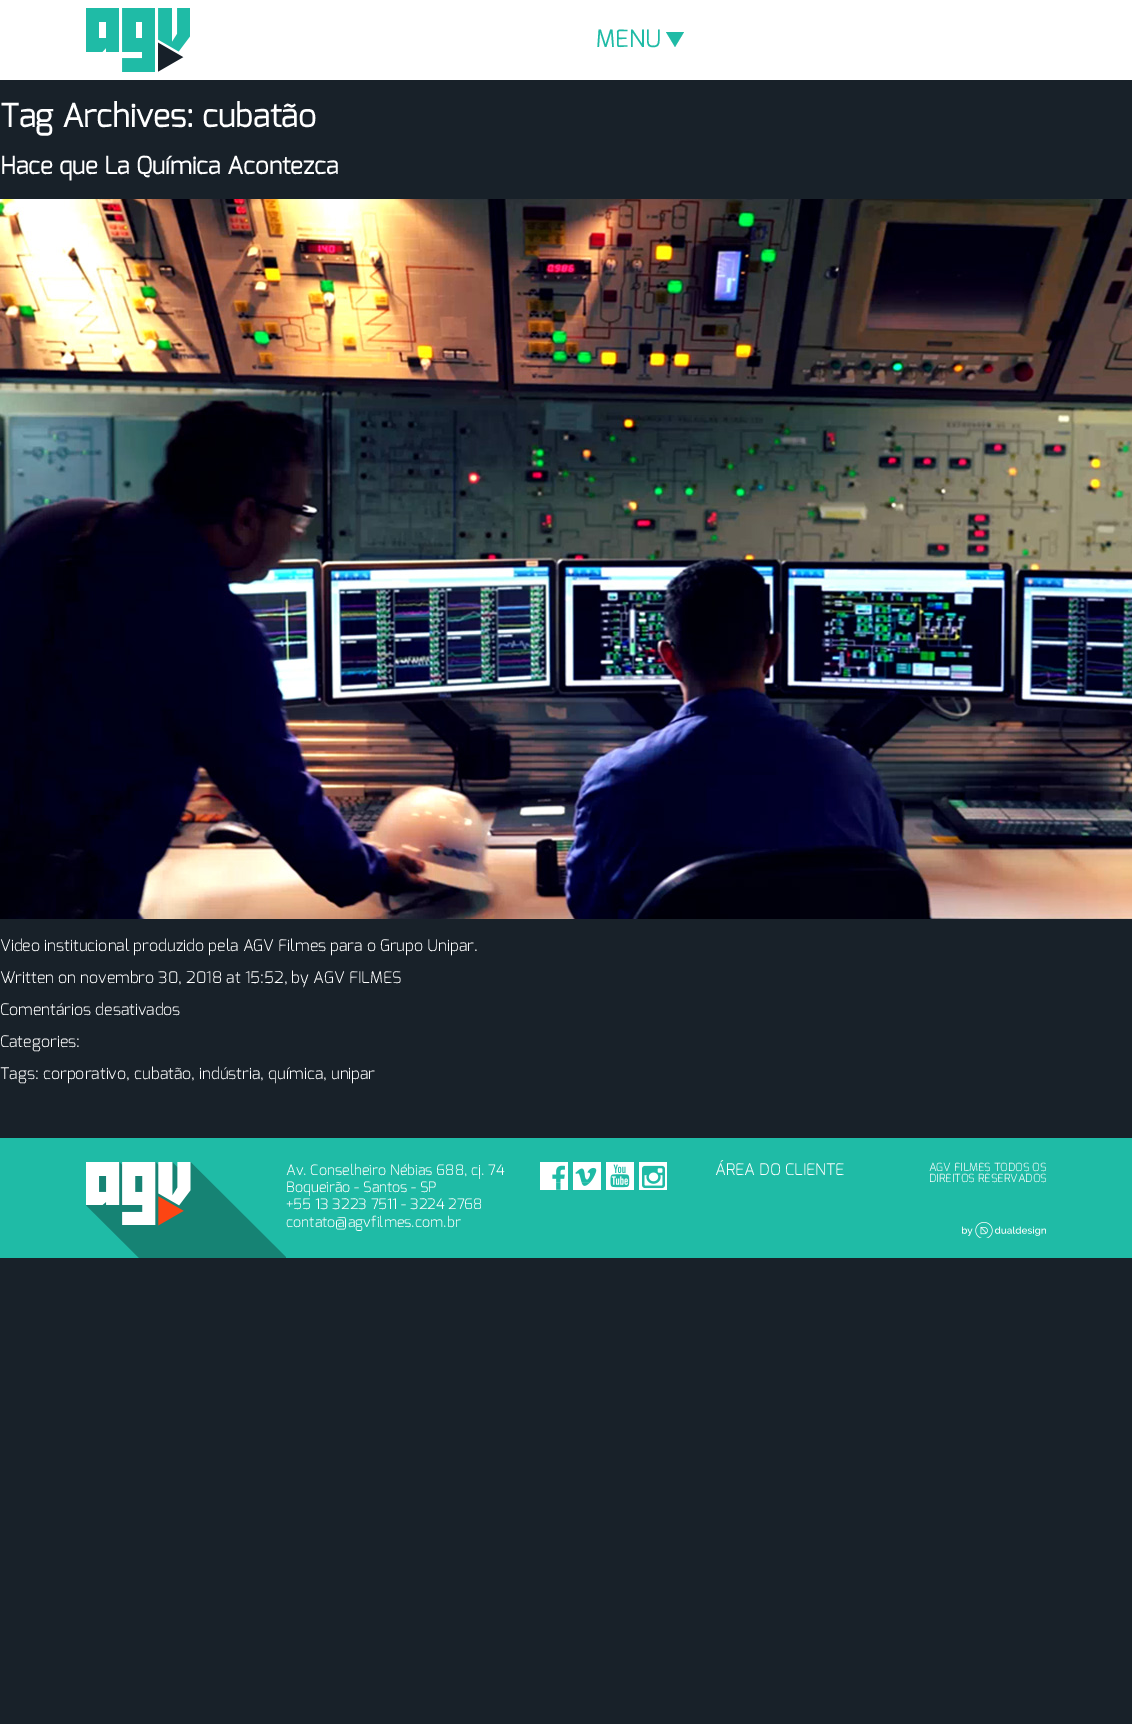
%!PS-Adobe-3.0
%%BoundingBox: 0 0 1132 1724
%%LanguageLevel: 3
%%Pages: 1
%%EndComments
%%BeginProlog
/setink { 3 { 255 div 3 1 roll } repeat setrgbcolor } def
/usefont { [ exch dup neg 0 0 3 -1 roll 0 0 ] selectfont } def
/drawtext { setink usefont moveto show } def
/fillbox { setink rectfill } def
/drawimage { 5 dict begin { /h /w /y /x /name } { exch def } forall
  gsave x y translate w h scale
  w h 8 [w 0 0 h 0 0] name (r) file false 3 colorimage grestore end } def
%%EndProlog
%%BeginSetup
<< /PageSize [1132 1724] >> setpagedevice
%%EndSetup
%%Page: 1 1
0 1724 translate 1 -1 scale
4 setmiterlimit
0 0 1132 1724 24 33 41 fillbox
0 0 1132 80 255 255 255 fillbox
86 8 104 64 31 187 166 fillbox
(assets/img1.rgb) 86 8 104 64 drawimage
(MENU) 596 47 /Exo-Regular 24 31 187 166 drawtext
666 32 moveto 684 32 lineto 675 47 lineto closepath fill
(Tag Archives: cubatão) 0 127 /Exo-Bold 32 255 255 255 drawtext
(Hace que La Química Acontezca) 0 174 /Exo-Bold 24 255 255 255 drawtext
(assets/img2.rgb) 0 199 1132 720 drawimage
(Video institucional produzido pela AGV Filmes para o Grupo Unipar.) 0 951 /Exo-Light 16 255 255 255 drawtext
(Written on novembro 30, 2018 at 15:52, by AGV FILMES) 0 983 /Exo-Light 16 255 255 255 drawtext
(Comentários desativados) 0 1015 /Exo-Light 16 255 255 255 drawtext
(Categories:) 0 1047 /Exo-Light 16 255 255 255 drawtext
(Tags: corporativo, cubatão, indústria, química, unipar) 0 1079 /Exo-Light 16 255 255 255 drawtext
0 1138 1132 120 31 187 166 fillbox
(assets/img3.rgb) 86 1162 200 96 drawimage
(Av. Conselheiro Nébias 688, cj. 74) 286 1175 /Exo-Light 14.4 255 255 255 drawtext
(Boqueirão - Santos - SP) 286 1192 /Exo-Light 14.4 255 255 255 drawtext
(+55 13 3223 7511 - 3224 2768) 286 1209 /Exo-Light 14.4 255 255 255 drawtext
(contato@agvfilmes.com.br) 286 1227 /Exo-Light 14.4 255 255 255 drawtext
(assets/img4.rgb) 540 1162 28 28 drawimage
(assets/img5.rgb) 573 1162 28 28 drawimage
(assets/img6.rgb) 606 1162 28 28 drawimage
(assets/img7.rgb) 639 1162 28 28 drawimage
(ÁREA DO CLIENTE) 715 1175 /Exo-Light 16 255 255 255 drawtext
(AGV FILMES TODOS OS) 929 1171 /Exo-Light 11.25 255 255 255 drawtext
(DIREITOS RESERVADOS) 929 1182 /Exo-Light 11.25 255 255 255 drawtext
(assets/img8.rgb) 962 1222 84 16 drawimage
showpage
%%EOF
